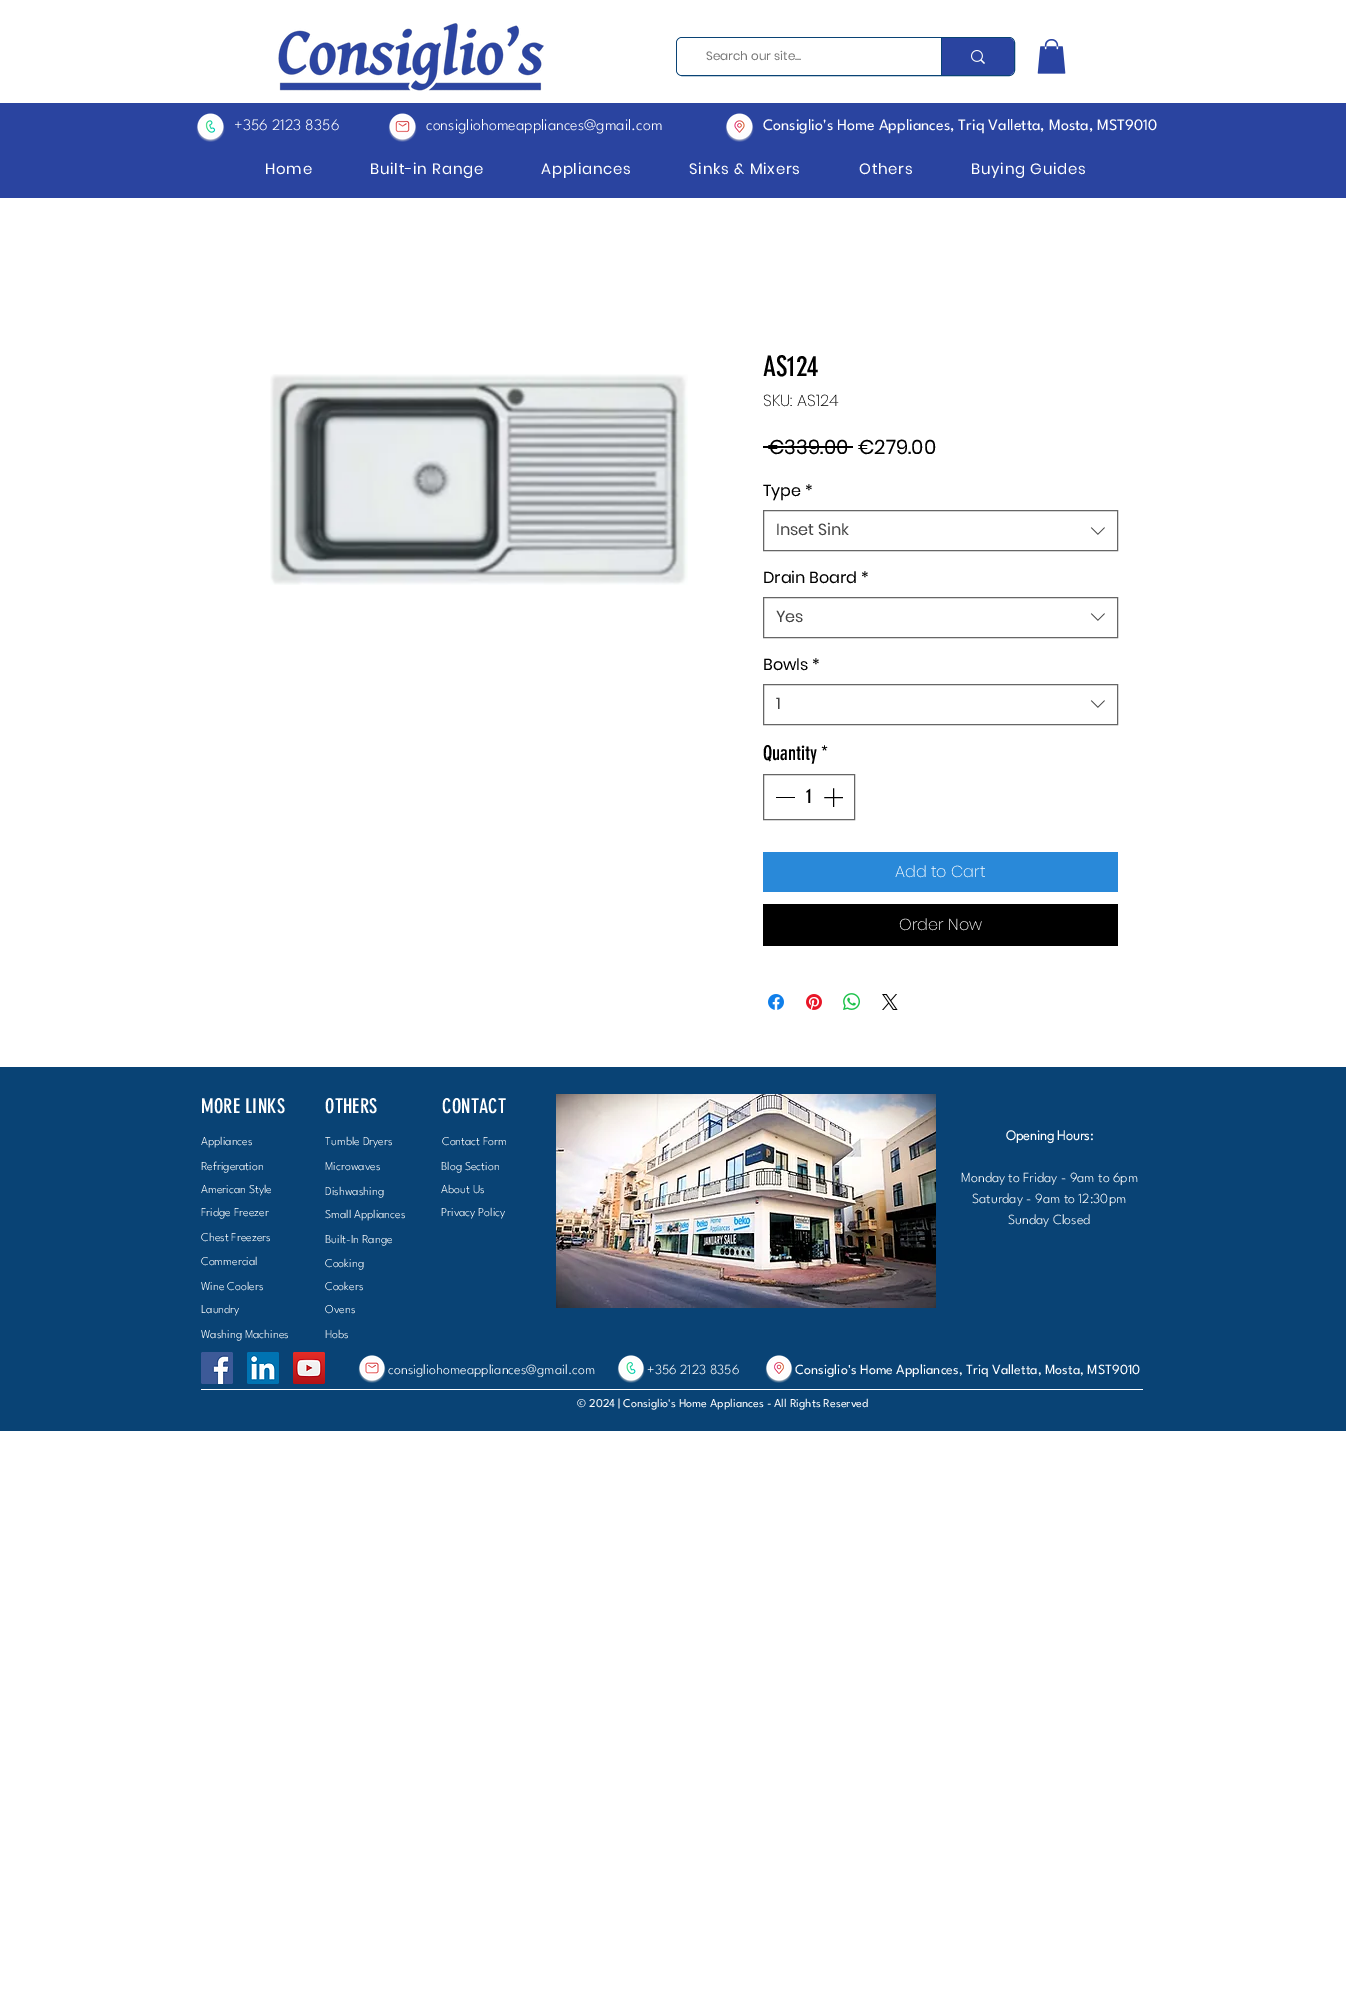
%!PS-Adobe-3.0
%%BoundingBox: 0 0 1346 2016
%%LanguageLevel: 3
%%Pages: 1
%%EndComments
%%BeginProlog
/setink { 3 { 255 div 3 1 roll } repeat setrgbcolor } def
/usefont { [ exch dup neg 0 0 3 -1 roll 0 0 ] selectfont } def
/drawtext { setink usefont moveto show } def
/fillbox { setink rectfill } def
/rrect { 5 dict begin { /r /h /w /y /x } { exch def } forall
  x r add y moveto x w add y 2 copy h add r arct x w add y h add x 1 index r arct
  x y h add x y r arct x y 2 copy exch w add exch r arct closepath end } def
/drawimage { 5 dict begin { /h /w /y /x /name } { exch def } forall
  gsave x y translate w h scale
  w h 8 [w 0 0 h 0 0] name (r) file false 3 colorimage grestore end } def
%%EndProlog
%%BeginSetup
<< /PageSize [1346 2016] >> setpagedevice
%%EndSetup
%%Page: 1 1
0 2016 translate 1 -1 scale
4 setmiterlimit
0 0 1346 2016 255 255 255 fillbox
(assets/img1.rgb) 278 23 266 68 drawimage
9 67 117 setink
676.5 37.5 338 38 5.5 rrect stroke
255 255 255 setink
677 38 337 37 5 rrect fill
(Search our site...) 706 60 /Poppins-Regular 12 120 120 120 drawtext
42 68 160 setink
941 38 moveto 1009 38 lineto 1012 38 1014 40 1014 43 curveto 1014 70 lineto 1014 73 1012 75 1009 75 curveto 941 75 lineto closepath fill
941 38 1 37 9 67 117 fillbox
(assets/img2.rgb) 971 50 14 14 drawimage
(assets/img3.rgb) 1037 39 29 35 drawimage
0 103 1346 95 42 68 160 fillbox
(assets/img4.rgb) 196 113 29 29 drawimage
(+356 2123 8356) 234 130 /LeagueSpartan-Thin 16 255 255 255 drawtext
(assets/img5.rgb) 388 113 29 29 drawimage
(consigliohomeappliances@gmail.com) 426 130 /LeagueSpartan-Thin 16 255 255 255 drawtext
(assets/img6.rgb) 725 113 29 29 drawimage
(Consiglio's Home Appliances, Triq Valletta, Mosta, MST9010) 763 130 /LeagueSpartan-Regular 16 255 255 255 drawtext
/Poppins-Regular 15 usefont
265 174 moveto 0.75 0 (Home) ashow
370 174 moveto 0.75 0 (Built-in Range) ashow
541 174 moveto 0.75 0 (Appliances) ashow
689 174 moveto 0.75 0 (Sinks & Mixers) ashow
859 174 moveto 0.75 0 (Others) ashow
971 174 moveto 0.75 0 (Buying Guides) ashow
(assets/img7.rgb) 270 374 418 211 drawimage
(AS124) 763 376 /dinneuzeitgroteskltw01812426-Regular 28 0 0 0 drawtext
(SKU: AS124) 763 406 /Poppins-ExtraLight 16 0 0 0 drawtext
(€339.00) 768 454 /Poppins-Regular 20 0 0 0 drawtext
763 446 90 2 0 0 0 fillbox
(€279.00) 858 454 /Poppins-Regular 20 0 0 0 drawtext
(Type *) 763 496 /Poppins-Regular 16 0 0 0 drawtext
102 102 102 setink
763.5 510.5 354 40 rectstroke
(Inset Sink) 776 535 /Poppins-Regular 16 68 68 68 drawtext
(assets/img8.rgb) 1090 527 15 8 drawimage
(Drain Board *) 763 583 /Poppins-Regular 16 0 0 0 drawtext
102 102 102 setink
763.5 597.5 354 40 rectstroke
(Yes) 776 622 /Poppins-Regular 16 68 68 68 drawtext
(assets/img8.rgb) 1090 613 15 8 drawimage
(Bowls *) 763 670 /Poppins-Regular 16 0 0 0 drawtext
102 102 102 setink
763.5 684.5 354 40 rectstroke
(1) 776 709 /Poppins-Regular 16 68 68 68 drawtext
(assets/img8.rgb) 1090 700 15 8 drawimage
(Quantity) 763 760 /dinneuzeitgroteskltw01812426-Regular 20 0 0 0 drawtext
(*) 821 760 /dinneuzeitgroteskltw01812426-Regular 20 0 0 0 drawtext
102 102 102 setink
763.5 774.5 91 45 rectstroke
776 797 19 1 0 0 0 fillbox
(1) 806 803 /dinneuzeitgroteskltw01812426-Regular 20 0 0 0 drawtext
(assets/img9.rgb) 824 788 19 19 drawimage
763 852 355 40 41 137 217 fillbox
(Add to Cart) 895 877 /Poppins-ExtraLight 16 255 255 255 drawtext
763 904 355 42 0 0 0 fillbox
(Order Now) 899 930 /Poppins-ExtraLight 16 255 255 255 drawtext
(assets/img10.rgb) 768 994 16 16 drawimage
(assets/img11.rgb) 806 994 16 16 drawimage
(assets/img12.rgb) 843 993 17 17 drawimage
(assets/img13.rgb) 882 994 16 16 drawimage
0 1067 1346 364 9 67 117 fillbox
/dinneuzeitgroteskltw01812426-Regular 20 usefont
255 255 255 setink
201 1113 moveto 0.25 0 (MORE LINKS) ashow
325 1113 moveto 0.25 0 (OTHERS) ashow
442 1113 moveto 0.25 0 (CONTACT) ashow
(Appliances) 201 1145 /LeagueSpartan-Thin 12 255 255 255 drawtext
(Tumble Dryers) 325 1145 /LeagueSpartan-Thin 12 255 255 255 drawtext
(Contact Form) 442 1145 /LeagueSpartan-Thin 12 255 255 255 drawtext
(Refrigeration) 201 1170 /LeagueSpartan-Thin 12 255 255 255 drawtext
(Microwaves) 325 1170 /LeagueSpartan-Thin 12 255 255 255 drawtext
(Blog Section) 441 1170 /LeagueSpartan-Thin 12 255 255 255 drawtext
(American Style) 201 1193 /LeagueSpartan-Thin 12 255 255 255 drawtext
(Dishwashing) 325 1195 /LeagueSpartan-Thin 12 255 255 255 drawtext
(About Us) 441 1193 /LeagueSpartan-Thin 12 255 255 255 drawtext
(Fridge Freezer) 201 1216 /LeagueSpartan-Thin 12 255 255 255 drawtext
(Small Appliances) 325 1218 /LeagueSpartan-Thin 12 255 255 255 drawtext
(Privacy Policy) 441 1216 /LeagueSpartan-Thin 12 255 255 255 drawtext
(Chest Freezers) 201 1241 /LeagueSpartan-Thin 12 255 255 255 drawtext
(Built-In Range) 325 1243 /LeagueSpartan-Thin 12 255 255 255 drawtext
(Commercial) 201 1265 /LeagueSpartan-Thin 12 255 255 255 drawtext
(Cooking) 325 1267 /LeagueSpartan-Thin 12 255 255 255 drawtext
(Wine Coolers) 201 1290 /LeagueSpartan-Thin 12 255 255 255 drawtext
(Cookers) 325 1290 /LeagueSpartan-Thin 12 255 255 255 drawtext
(Laundry) 201 1313 /LeagueSpartan-Thin 12 255 255 255 drawtext
(Ovens) 325 1313 /LeagueSpartan-Thin 12 255 255 255 drawtext
(Washing Machines) 201 1338 /LeagueSpartan-Thin 12 255 255 255 drawtext
(Hobs) 325 1338 /LeagueSpartan-Thin 12 255 255 255 drawtext
(assets/img14.rgb) 556 1094 380 214 drawimage
(Opening Hours:) 1006 1140 /LeagueSpartan-Bold 14 255 255 255 drawtext
(Monday to Friday - 9am to 6pm) 961 1182 /LeagueSpartan-Thin 14 255 255 255 drawtext
(Saturday - 9am to 12:30pm) 972 1203 /LeagueSpartan-Thin 14 255 255 255 drawtext
(Sunday Closed) 1008 1224 /LeagueSpartan-Thin 14 255 255 255 drawtext
(assets/img15.rgb) 201 1352 32 32 drawimage
(assets/img16.rgb) 247 1352 32 32 drawimage
(assets/img17.rgb) 293 1352 32 32 drawimage
(assets/img18.rgb) 358 1355 28 28 drawimage
(consigliohomeappliances@gmail.com) 388 1374 /LeagueSpartan-Thin 14 255 255 255 drawtext
(assets/img19.rgb) 617 1355 28 28 drawimage
(+356 2123 8356) 647 1374 /LeagueSpartan-Thin 14 255 255 255 drawtext
(assets/img20.rgb) 765 1355 28 28 drawimage
(Consiglio's Home Appliances, Triq Valletta, Mosta, MST9010) 795 1374 /LeagueSpartan-Regular 14 255 255 255 drawtext
201 1389 942 1 255 255 255 fillbox
(© 2024 | Consiglio's Home Appliances - All Rights Reserved) 577 1407 /LeagueSpartan-Regular 12 255 255 255 drawtext
showpage
%%EOF
